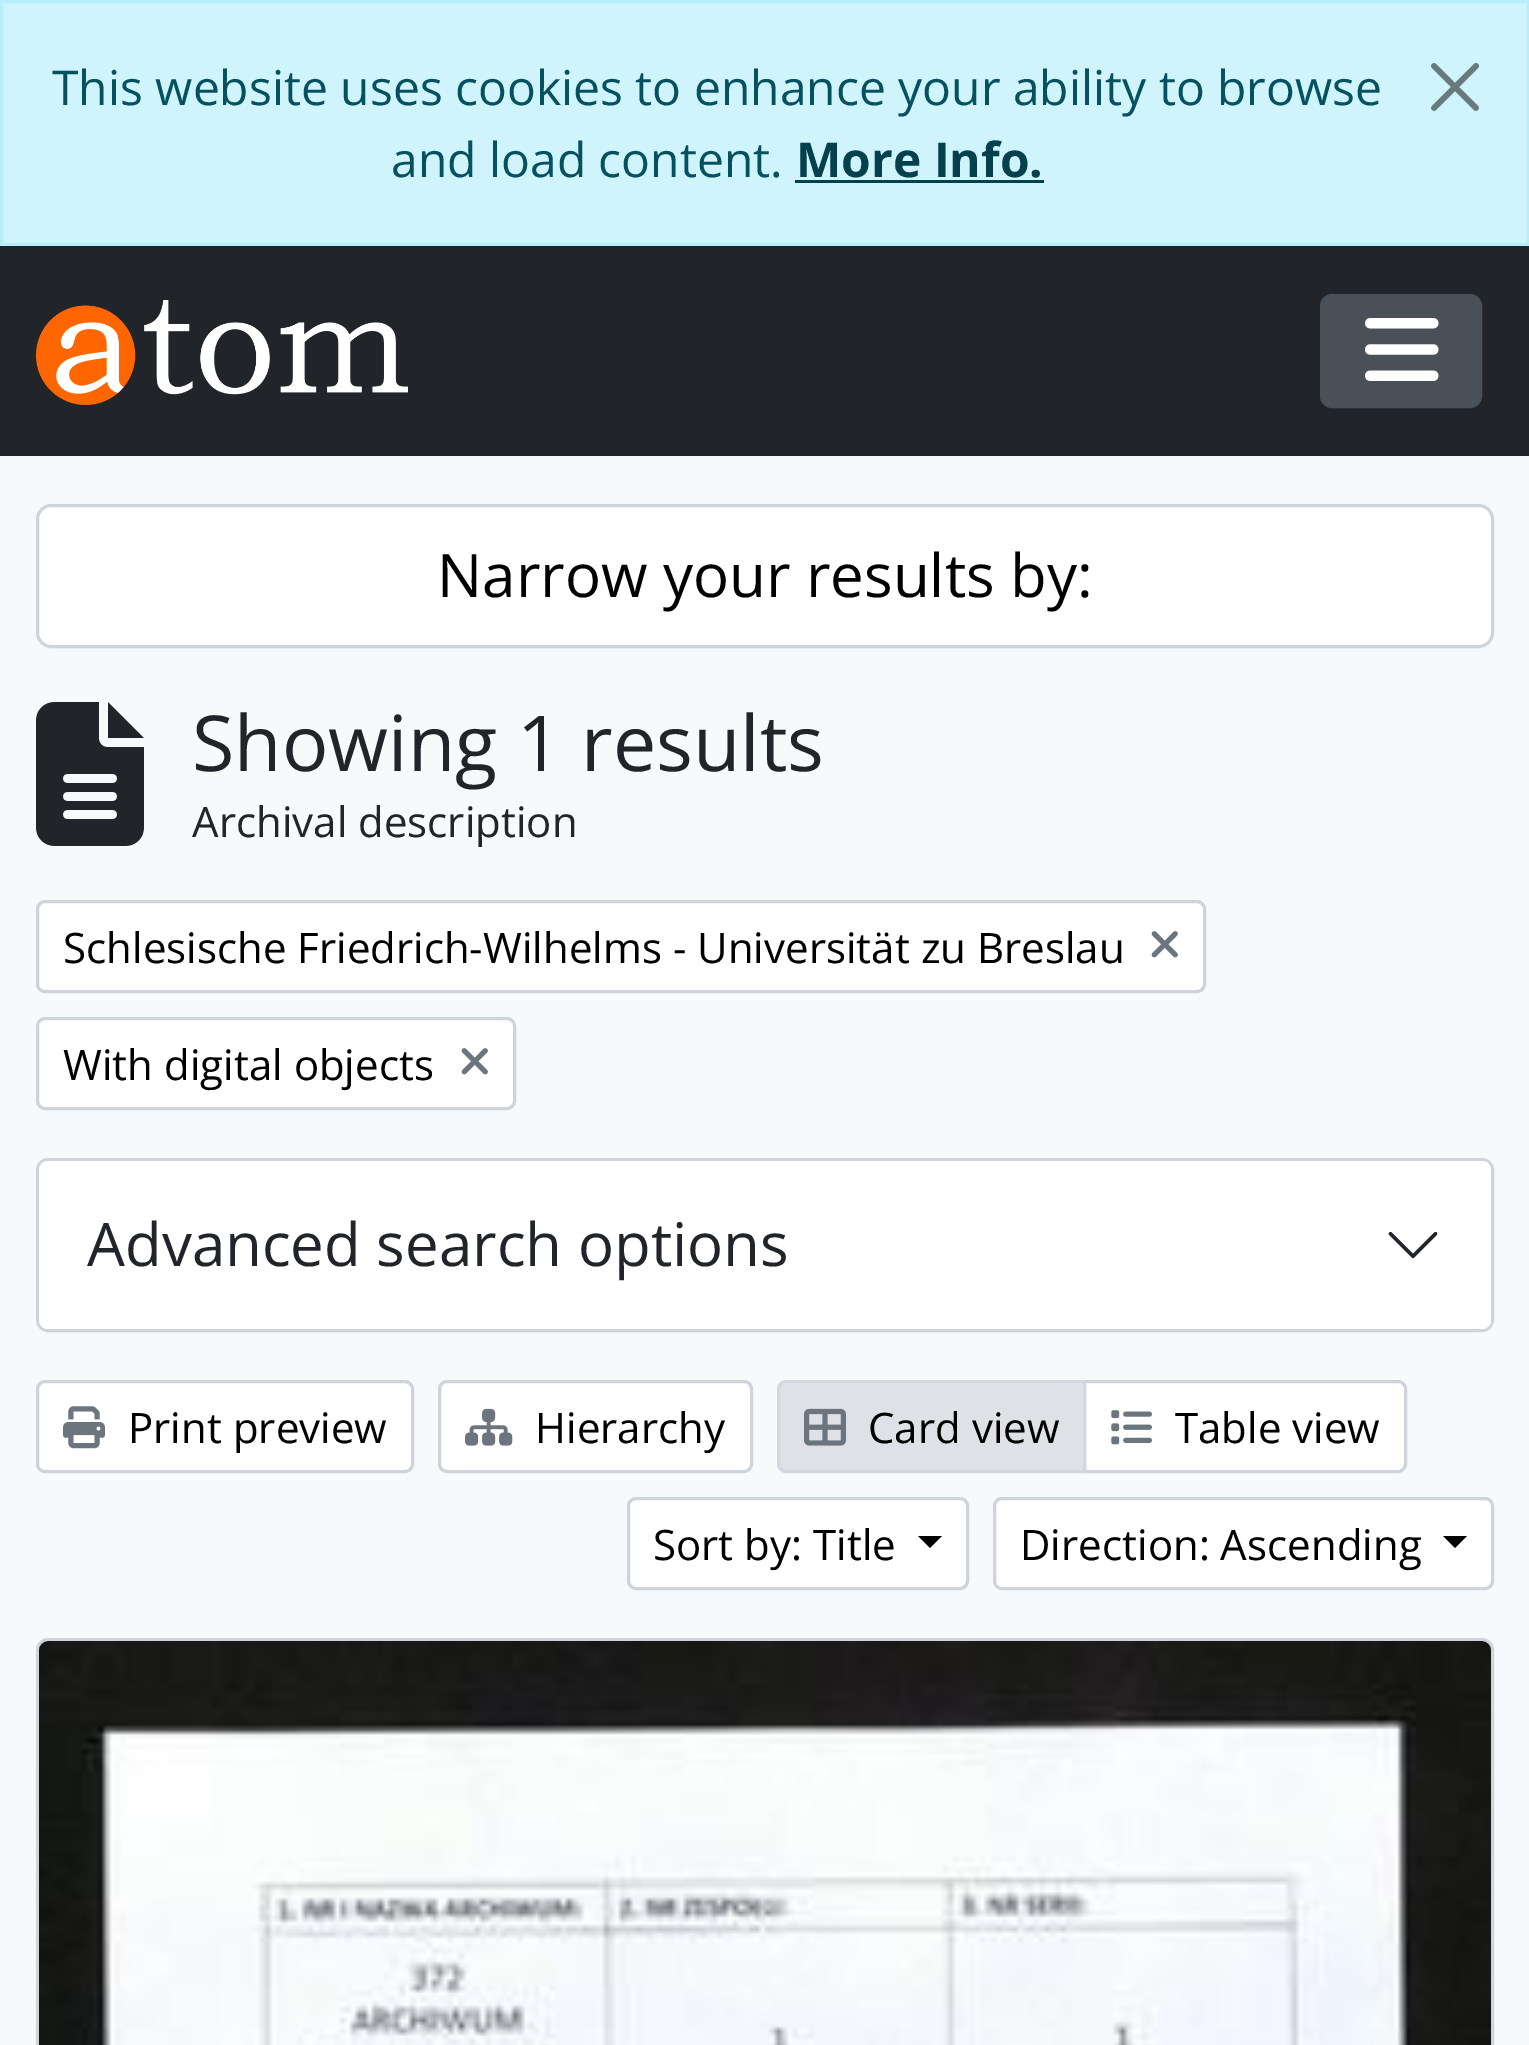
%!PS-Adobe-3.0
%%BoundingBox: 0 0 1529 2045
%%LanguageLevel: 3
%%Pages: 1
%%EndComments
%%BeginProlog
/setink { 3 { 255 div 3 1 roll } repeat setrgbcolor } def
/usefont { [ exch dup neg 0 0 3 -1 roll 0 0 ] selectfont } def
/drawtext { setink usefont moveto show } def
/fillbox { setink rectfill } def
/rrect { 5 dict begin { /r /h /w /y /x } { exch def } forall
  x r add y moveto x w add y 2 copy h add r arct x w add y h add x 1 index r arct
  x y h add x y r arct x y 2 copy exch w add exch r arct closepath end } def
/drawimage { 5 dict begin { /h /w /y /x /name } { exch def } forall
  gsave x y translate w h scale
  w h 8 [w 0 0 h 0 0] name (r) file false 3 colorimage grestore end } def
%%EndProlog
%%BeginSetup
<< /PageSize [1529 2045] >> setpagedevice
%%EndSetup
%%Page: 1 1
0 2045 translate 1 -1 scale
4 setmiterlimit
0 0 1529 2045 248 249 250 fillbox
207 244 252 setink
1.5 1.5 moveto 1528.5 1.5 lineto 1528.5 244.5 lineto 1.5 244.5 lineto closepath gsave fill grestore
182 239 251 setink
3 setlinewidth
stroke
(This website uses cookies to enhance your ability to browse) 52 105 /OpenSans-Regular 48 5 81 96 drawtext
(and load content.) 391 177 /OpenSans-Regular 48 5 81 96 drawtext
(More Info.) 796 177 /OpenSans-Bold 48 4 65 77 drawtext
795 180 249 3 4 65 77 fillbox
(assets/img1.rgb) 1431 63 48 48 drawimage
0 246 1529 210 33 37 41 fillbox
(assets/img2.rgb) 36 300 372 105 drawimage
73 80 87 setink
1321.5 295.5 159 111 10.5 rrect gsave fill grestore
stroke
(assets/img3.rgb) 1365 318 74 63 drawimage
255 255 255 setink
37.5 505.5 1455 141 13.5 rrect gsave fill grestore
206 212 218 setink
stroke
(Narrow your results by:) 437 597 /OpenSans-Regular 60 0 0 0 drawtext
(assets/img4.rgb) 36 702 108 144 drawimage
(Showing 1 results) 192 771 /OpenSans-Regular 77.25 33 37 41 drawtext
(Archival description) 192 837 /OpenSans-Regular 42 33 37 41 drawtext
255 255 255 setink
37.5 901.5 1167 90 7.5 rrect gsave fill grestore
206 212 218 setink
stroke
(Schlesische Friedrich-Wilhelms - Universität zu Breslau) 63 963 /OpenSans-Regular 42 0 0 0 drawtext
(assets/img5.rgb) 1151 931 27 27 drawimage
255 255 255 setink
37.5 1018.5 477 90 7.5 rrect gsave fill grestore
206 212 218 setink
stroke
(With digital objects) 63 1080 /OpenSans-Regular 42 0 0 0 drawtext
(assets/img5.rgb) 461 1048 27 27 drawimage
206 212 218 setink
37.5 1159.5 1455 171 10.5 rrect stroke
255 255 255 setink
39 1161 1452 168 9 rrect fill
(Advanced search options) 87 1266 /OpenSans-Regular 60 33 37 41 drawtext
(assets/img6.rgb) 1388 1231 50 28 drawimage
255 255 255 setink
37.5 1381.5 375 90 7.5 rrect gsave fill grestore
206 212 218 setink
stroke
(assets/img7.rgb) 63 1406 42 43 drawimage
(Print preview) 128 1443 /OpenSans-Regular 42 0 0 0 drawtext
255 255 255 setink
439.5 1381.5 312 90 7.5 rrect gsave fill grestore
206 212 218 setink
stroke
(assets/img8.rgb) 465 1408 48 38 drawimage
(Hierarchy) 535 1443 /OpenSans-Regular 42 0 0 0 drawtext
255 255 255 setink
1084.5 1381.5 moveto 1398 1381.5 lineto 1402 1381.5 1405.5 1385 1405.5 1389 curveto 1405.5 1464 lineto 1405.5 1468 1402 1471.5 1398 1471.5 curveto 1084.5 1471.5 lineto closepath gsave fill grestore
206 212 218 setink
stroke
222 226 230 setink
786 1381.5 moveto 1084.5 1381.5 lineto 1084.5 1471.5 lineto 786 1471.5 lineto 782 1471.5 778.5 1468 778.5 1464 curveto 778.5 1389 lineto 778.5 1385 782 1381.5 786 1381.5 curveto closepath gsave fill grestore
211 216 222 setink
stroke
(assets/img9.rgb) 804 1408 42 38 drawimage
(Card view) 868 1443 /OpenSans-Regular 42 0 0 0 drawtext
(assets/img10.rgb) 1111 1410 41 35 drawimage
(Table view) 1175 1443 /OpenSans-Regular 42 0 0 0 drawtext
255 255 255 setink
628.5 1498.5 339 90 7.5 rrect gsave fill grestore
206 212 218 setink
stroke
(Sort by: Title) 653 1560 /OpenSans-Regular 42 0 0 0 drawtext
918 1536 moveto 942 1536 lineto 930 1548 lineto closepath fill
255 255 255 setink
994.5 1498.5 498 90 7.5 rrect gsave fill grestore
206 212 218 setink
stroke
(Direction: Ascending) 1020 1560 /OpenSans-Regular 42 0 0 0 drawtext
1443 1536 moveto 1467 1536 lineto 1455 1548 lineto closepath fill
255 255 255 setink
37.5 1639.5 1455 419 10.5 rrect gsave fill grestore
206 212 218 setink
stroke
(assets/img11.rgb) 39 1641 1452 404 drawimage
showpage
%%EOF
